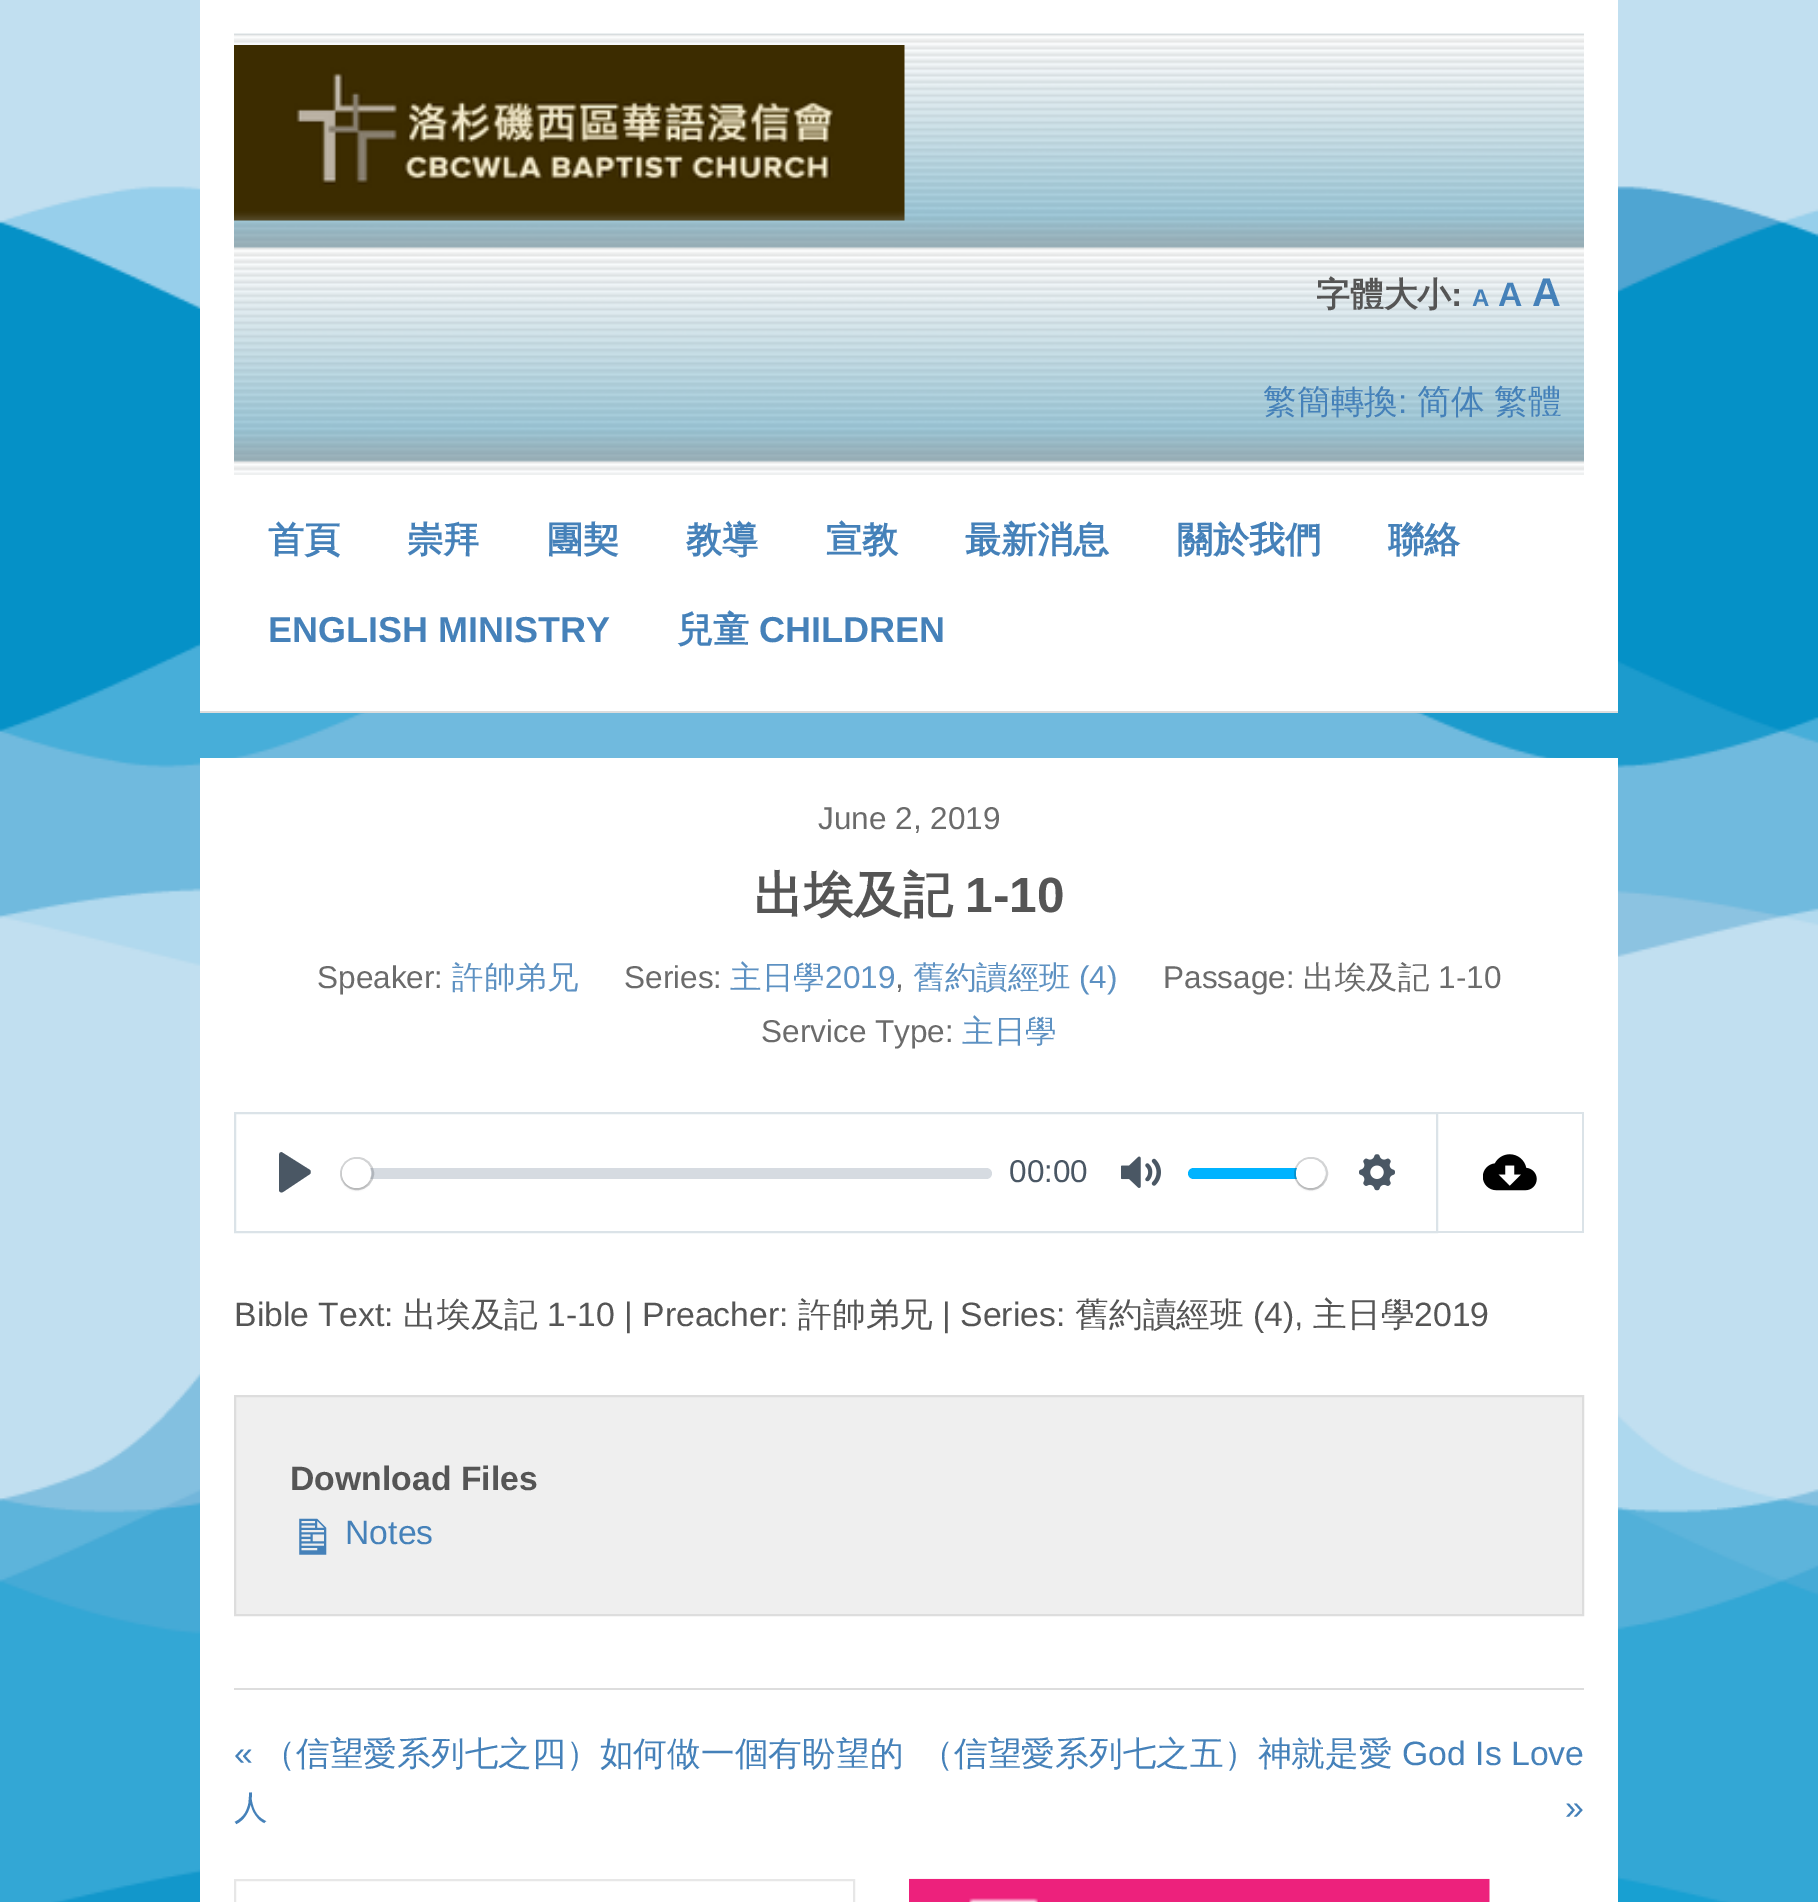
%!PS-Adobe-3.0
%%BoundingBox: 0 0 1818 1902
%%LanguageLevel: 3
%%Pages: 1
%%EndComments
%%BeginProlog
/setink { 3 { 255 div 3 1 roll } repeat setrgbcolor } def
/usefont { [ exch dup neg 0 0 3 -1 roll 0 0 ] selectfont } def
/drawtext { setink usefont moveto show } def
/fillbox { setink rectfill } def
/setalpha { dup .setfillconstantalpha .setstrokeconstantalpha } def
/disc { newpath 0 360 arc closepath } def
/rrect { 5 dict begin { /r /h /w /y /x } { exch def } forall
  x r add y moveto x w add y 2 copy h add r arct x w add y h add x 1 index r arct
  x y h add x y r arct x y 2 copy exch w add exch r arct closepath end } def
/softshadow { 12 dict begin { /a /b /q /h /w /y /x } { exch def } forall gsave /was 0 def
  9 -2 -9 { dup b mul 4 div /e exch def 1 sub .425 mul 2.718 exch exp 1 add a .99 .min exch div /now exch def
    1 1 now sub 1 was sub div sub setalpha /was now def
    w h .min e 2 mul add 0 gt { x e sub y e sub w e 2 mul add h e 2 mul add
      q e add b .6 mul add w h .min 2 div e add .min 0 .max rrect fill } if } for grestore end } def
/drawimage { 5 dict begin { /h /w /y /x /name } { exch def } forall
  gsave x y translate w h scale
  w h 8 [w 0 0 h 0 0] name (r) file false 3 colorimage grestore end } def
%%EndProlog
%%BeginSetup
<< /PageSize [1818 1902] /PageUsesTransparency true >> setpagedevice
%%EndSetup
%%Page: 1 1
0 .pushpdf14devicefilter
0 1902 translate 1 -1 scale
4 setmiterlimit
0 0 1818 1902 255 255 255 fillbox
(assets/img1.rgb) 0 0 1818 1902 drawimage
200 0 1418 711 255 255 255 fillbox
200 711 1418 2 221 221 221 fillbox
(assets/img2.rgb) 234 33 1350 442 drawimage
(assets/img3.rgb) 234 45 671 176 drawimage
(字體大小) 1316 306 /WenQuanYiZenHei-Bold 33.75 85 85 85 drawtext
(:) 1451 306 /LiberationSans-Bold 33.75 85 85 85 drawtext
(A) 1472 306 /LiberationSans-Bold 24 69 129 185 drawtext
(A) 1498 306 /LiberationSans-Bold 33.75 69 129 185 drawtext
(A) 1532 306 /LiberationSans-Bold 40 69 129 185 drawtext
(繁簡轉換) 1263 413 /WenQuanYiZenHei-Medium 33.75 69 129 185 drawtext
(:) 1398 413 /LiberationSans-Regular 33.75 69 129 185 drawtext
(简体) 1417 413 /WenQuanYiZenHei-Medium 33.75 69 129 185 drawtext
(繁體) 1494 413 /WenQuanYiZenHei-Medium 33.75 69 129 185 drawtext
(首頁) 268 552 /WenQuanYiZenHei-Bold 36 69 129 185 drawtext
(崇拜) 407 552 /WenQuanYiZenHei-Bold 36 69 129 185 drawtext
(團契) 547 552 /WenQuanYiZenHei-Bold 36 69 129 185 drawtext
(教導) 686 552 /WenQuanYiZenHei-Bold 36 69 129 185 drawtext
(宣教) 826 552 /WenQuanYiZenHei-Bold 36 69 129 185 drawtext
(最新消息) 965 552 /WenQuanYiZenHei-Bold 36 69 129 185 drawtext
(關於我們) 1177 552 /WenQuanYiZenHei-Bold 36 69 129 185 drawtext
(聯絡) 1388 552 /WenQuanYiZenHei-Bold 36 69 129 185 drawtext
(ENGLISH MINISTRY) 268 642 /LiberationSans-Bold 36 69 129 185 drawtext
(兒童) 677 642 /WenQuanYiZenHei-Bold 36 69 129 185 drawtext
(CHILDREN) 759 642 /LiberationSans-Bold 36 69 129 185 drawtext
200 758 1418 1144 255 255 255 fillbox
(June 2, 2019) 818 829 /LiberationSans-Regular 31.5 107 107 107 drawtext
(出埃及記) 754 912 /WenQuanYiZenHei-Bold 49.5 85 85 85 drawtext
(1-10) 965 912 /LiberationSans-Bold 49.5 85 85 85 drawtext
(Speaker:) 317 988 /LiberationSans-Regular 31.5 107 107 107 drawtext
(許帥弟兄) 452 988 /WenQuanYiZenHei-Medium 31.5 93 145 194 drawtext
(Series:) 624 988 /LiberationSans-Regular 31.5 107 107 107 drawtext
(主日學) 730 988 /WenQuanYiZenHei-Medium 31.5 93 145 194 drawtext
(2019) 825 988 /LiberationSans-Regular 31.5 93 145 194 drawtext
(,) 895 988 /LiberationSans-Regular 31.5 107 107 107 drawtext
(舊約讀經班) 913 988 /WenQuanYiZenHei-Medium 31.5 93 145 194 drawtext
(\(4\)) 1079 988 /LiberationSans-Regular 31.5 93 145 194 drawtext
(Passage:) 1163 988 /LiberationSans-Regular 31.5 107 107 107 drawtext
(出埃及記) 1303 988 /WenQuanYiZenHei-Medium 31.5 107 107 107 drawtext
(1-10) 1438 988 /LiberationSans-Regular 31.5 107 107 107 drawtext
(Service Type:) 761 1042 /LiberationSans-Regular 31.5 107 107 107 drawtext
(主日學) 962 1042 /WenQuanYiZenHei-Medium 31.5 93 145 194 drawtext
219 227 232 setink
2 setlinewidth
235 1113 1202 119 rectstroke
74 87 100 setink
310 1170 moveto 283 1153 lineto 281 1151 279 1153 279 1155 curveto 279 1190 lineto 279 1192 281 1193 283 1192 curveto 310 1174 lineto 311 1173 311 1171 310 1170 curveto closepath fill
0.66 setalpha
193 201 209 setink
342 1168 650 11 5.5 rrect fill
0.2 setalpha
35 41 47 setink
341 1158 32 31 15.5 rrect stroke
1 setalpha
0 0 0 setink
342 1161 29 29 14.5 1 0.15 softshadow
255 255 255 setink
356.5 1173.5 14.5 disc fill
(00:00) 1009 1182 /LiberationSans-Regular 31.5 74 87 100 drawtext
(assets/img4.rgb) 1121 1156 40 32 drawimage
0 179 255 setink
1188 1168 137 11 5.5 rrect fill
0.2 setalpha
35 41 47 setink
1295 1158 32 31 15.5 rrect stroke
1 setalpha
0 0 0 setink
1296 1161 29 29 14.5 1 0.15 softshadow
255 255 255 setink
1310.5 1173.5 14.5 disc fill
(assets/img5.rgb) 1359 1154 36 37 drawimage
1438 1112 146 2 219 227 232 fillbox
1582 1112 2 121 219 227 232 fillbox
1438 1231 146 2 219 227 232 fillbox
(assets/img6.rgb) 1483 1154 54 37 drawimage
(Bible Text:) 234 1326 /LiberationSans-Regular 33.75 85 85 85 drawtext
(出埃及記) 403 1326 /WenQuanYiZenHei-Medium 33.75 85 85 85 drawtext
(1-10 | Preacher:) 547 1326 /LiberationSans-Regular 33.75 85 85 85 drawtext
(許帥弟兄) 798 1326 /WenQuanYiZenHei-Medium 33.75 85 85 85 drawtext
(| Series:) 942 1326 /LiberationSans-Regular 33.75 85 85 85 drawtext
(舊約讀經班) 1075 1326 /WenQuanYiZenHei-Medium 33.75 85 85 85 drawtext
(\(4\),) 1253 1326 /LiberationSans-Regular 33.75 85 85 85 drawtext
(主日學) 1313 1326 /WenQuanYiZenHei-Medium 33.75 85 85 85 drawtext
(2019) 1414 1326 /LiberationSans-Regular 33.75 85 85 85 drawtext
239 239 239 setink
235 1396 moveto 1583 1396 lineto 1583 1615 lineto 235 1615 lineto closepath gsave fill grestore
221 221 221 setink
stroke
(Download Files) 290 1490 /LiberationSans-Bold 33.75 85 85 85 drawtext
(assets/img7.rgb) 299 1518 28 37 drawimage
(Notes) 345 1544 /LiberationSans-Regular 33.75 69 129 185 drawtext
234 1688 1350 2 221 221 221 fillbox
(«) 234 1765 /LiberationSans-Regular 33.75 69 129 185 drawtext
(（信望愛系列七之四）如何做一個有盼望的) 262 1765 /WenQuanYiZenHei-Medium 33.75 69 129 185 drawtext
(人) 234 1819 /WenQuanYiZenHei-Medium 33.75 69 129 185 drawtext
(（信望愛系列七之五）神就是愛) 920 1765 /WenQuanYiZenHei-Medium 33.75 69 129 185 drawtext
(God Is Love) 1402 1765 /LiberationSans-Regular 33.75 69 129 185 drawtext
(») 1565 1819 /LiberationSans-Regular 33.75 69 129 185 drawtext
231 231 231 setink
235 1880 619 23 rectstroke
(assets/img8.rgb) 909 1878 581 24 drawimage
.poppdf14devicefilter showpage
%%EOF
